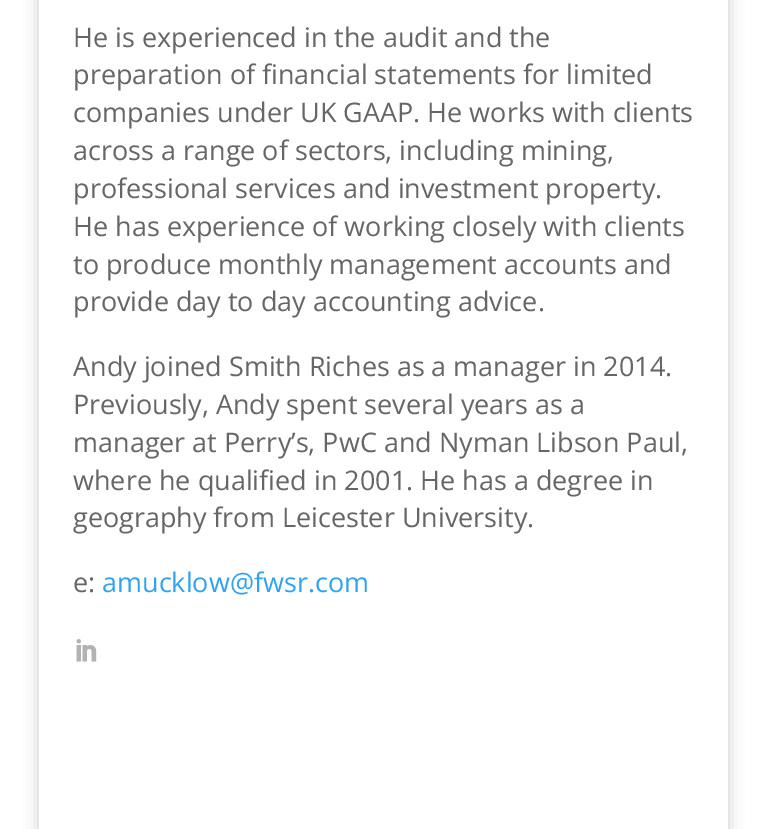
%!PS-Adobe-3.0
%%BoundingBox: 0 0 766 829
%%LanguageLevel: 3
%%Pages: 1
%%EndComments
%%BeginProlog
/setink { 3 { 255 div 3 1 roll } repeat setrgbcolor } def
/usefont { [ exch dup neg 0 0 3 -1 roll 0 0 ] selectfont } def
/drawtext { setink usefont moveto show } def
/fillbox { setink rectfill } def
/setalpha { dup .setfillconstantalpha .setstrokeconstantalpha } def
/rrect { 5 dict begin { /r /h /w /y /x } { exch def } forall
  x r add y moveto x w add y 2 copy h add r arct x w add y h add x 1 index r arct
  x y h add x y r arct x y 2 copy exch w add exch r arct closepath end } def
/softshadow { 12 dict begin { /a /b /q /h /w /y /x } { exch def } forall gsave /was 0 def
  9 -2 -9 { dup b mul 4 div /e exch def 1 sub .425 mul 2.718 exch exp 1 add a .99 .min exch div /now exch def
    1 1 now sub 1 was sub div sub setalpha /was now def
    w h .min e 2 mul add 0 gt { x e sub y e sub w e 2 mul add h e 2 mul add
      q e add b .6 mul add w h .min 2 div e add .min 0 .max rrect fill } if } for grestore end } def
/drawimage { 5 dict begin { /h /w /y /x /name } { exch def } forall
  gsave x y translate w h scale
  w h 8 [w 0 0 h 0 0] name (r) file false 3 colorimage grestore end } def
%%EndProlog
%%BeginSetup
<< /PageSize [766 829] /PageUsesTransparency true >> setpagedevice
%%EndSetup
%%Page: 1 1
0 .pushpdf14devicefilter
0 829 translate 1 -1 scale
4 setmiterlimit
0 0 766 829 255 255 255 fillbox
0 0 0 setink
39 -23 689 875 0 7.5 0.2 softshadow
39 0 689 829 255 255 255 fillbox
(He is experienced in the audit and the) 73 47 /OpenSans-Regular 27 102 102 102 drawtext
(preparation of financial statements for limited) 73 84 /OpenSans-Regular 27 102 102 102 drawtext
(companies under UK GAAP. He works with clients) 73 122 /OpenSans-Regular 27 102 102 102 drawtext
(across a range of sectors, including mining,) 73 160 /OpenSans-Regular 27 102 102 102 drawtext
(professional services and investment property.) 73 198 /OpenSans-Regular 27 102 102 102 drawtext
(He has experience of working closely with clients) 73 236 /OpenSans-Regular 27 102 102 102 drawtext
(to produce monthly management accounts and) 73 274 /OpenSans-Regular 27 102 102 102 drawtext
(provide day to day accounting advice.) 73 311 /OpenSans-Regular 27 102 102 102 drawtext
(Andy joined Smith Riches as a manager in 2014.) 73 376 /OpenSans-Regular 27 102 102 102 drawtext
(Previously, Andy spent several years as a) 73 414 /OpenSans-Regular 27 102 102 102 drawtext
(manager at Perry’s, PwC and Nyman Libson Paul,) 73 452 /OpenSans-Regular 27 102 102 102 drawtext
(where he qualified in 2001. He has a degree in) 73 490 /OpenSans-Regular 27 102 102 102 drawtext
(geography from Leicester University.) 73 527 /OpenSans-Regular 27 102 102 102 drawtext
(e:) 73 592 /OpenSans-Regular 27 102 102 102 drawtext
(amucklow@fwsr.com) 102 592 /OpenSans-Regular 27 46 163 242 drawtext
(assets/img1.rgb) 76 639 21 23 drawimage
.poppdf14devicefilter showpage
%%EOF
